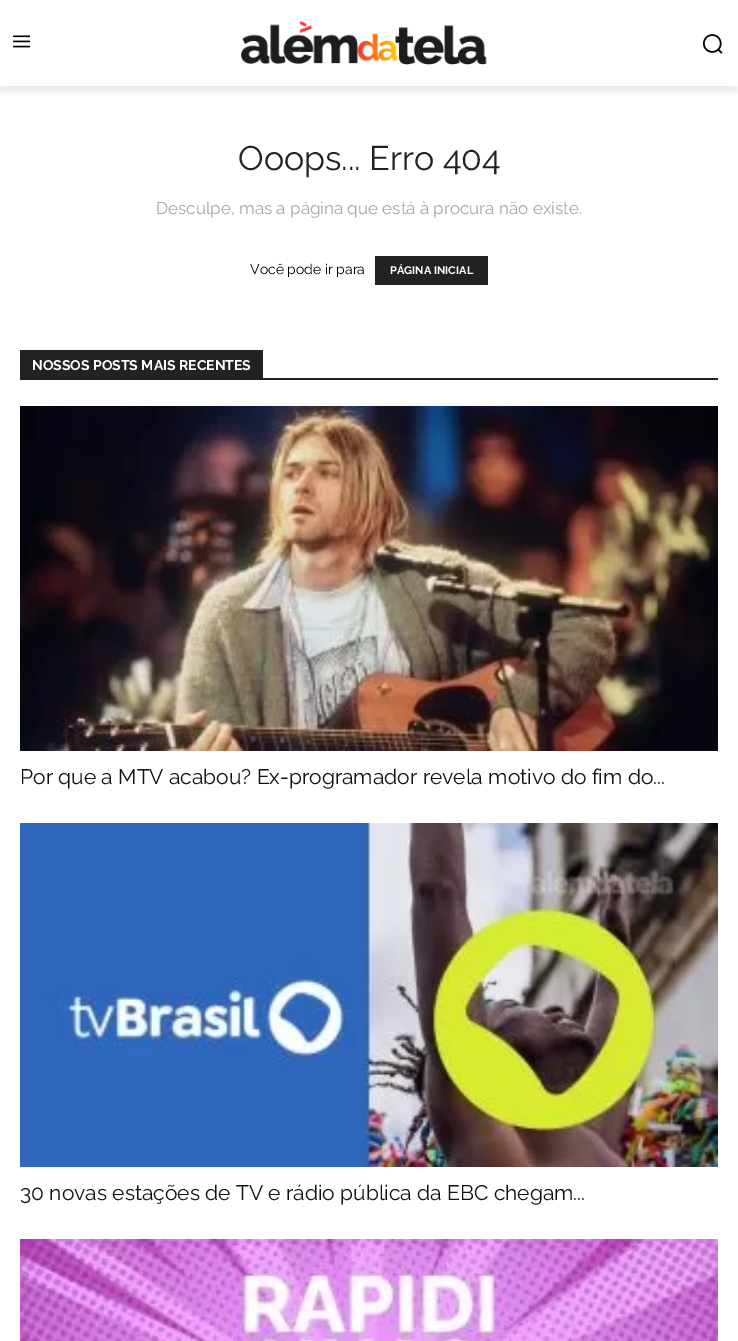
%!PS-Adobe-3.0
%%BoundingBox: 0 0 738 1341
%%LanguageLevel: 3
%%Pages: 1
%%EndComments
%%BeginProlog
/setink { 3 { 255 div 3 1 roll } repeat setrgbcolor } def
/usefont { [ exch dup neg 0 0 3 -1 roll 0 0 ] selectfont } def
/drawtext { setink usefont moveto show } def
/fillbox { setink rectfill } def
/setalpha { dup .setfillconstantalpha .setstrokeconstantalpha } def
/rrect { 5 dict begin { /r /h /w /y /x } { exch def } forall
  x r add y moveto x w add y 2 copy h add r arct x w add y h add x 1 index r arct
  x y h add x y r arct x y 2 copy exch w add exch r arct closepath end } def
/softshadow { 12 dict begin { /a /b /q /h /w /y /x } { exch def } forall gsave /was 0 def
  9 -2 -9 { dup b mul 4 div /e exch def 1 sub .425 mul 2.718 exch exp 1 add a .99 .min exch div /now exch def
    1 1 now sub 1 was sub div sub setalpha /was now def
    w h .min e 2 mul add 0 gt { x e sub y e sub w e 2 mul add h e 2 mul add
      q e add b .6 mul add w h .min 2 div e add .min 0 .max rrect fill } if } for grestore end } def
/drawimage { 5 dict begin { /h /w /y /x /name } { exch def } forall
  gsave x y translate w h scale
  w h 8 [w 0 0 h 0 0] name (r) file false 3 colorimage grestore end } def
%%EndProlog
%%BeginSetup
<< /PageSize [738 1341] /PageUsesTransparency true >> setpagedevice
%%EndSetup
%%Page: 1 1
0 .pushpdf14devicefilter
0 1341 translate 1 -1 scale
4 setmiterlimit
0 0 738 1341 255 255 255 fillbox
gsave
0 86 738 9 rectclip
0 0 0 setink
0 6 738 86 0 4 0.08 softshadow
grestore
(assets/img1.rgb) 13 35 18 13 drawimage
(assets/img2.rgb) 241 20 246 45 drawimage
(assets/img3.rgb) 702 34 21 20 drawimage
(Ooops... Erro 404) 238 170 /Raleway-Thin 34 34 34 34 drawtext
(Desculpe, mas a página que está à procura não existe.) 156 214 /Raleway-Thin 17 166 166 166 drawtext
(Você pode ir para) 250 274 /Raleway-Thin 14 0 0 0 drawtext
375 256 113 29 34 34 34 fillbox
(PÁGINA INICIAL) 390 274 /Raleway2-Thin 11 255 255 255 drawtext
20 378 698 2 34 34 34 fillbox
20 350 243 28 34 34 34 fillbox
(NOSSOS POSTS MAIS RECENTES) 32 370 /Raleway2-Thin 14 255 255 255 drawtext
(assets/img4.rgb) 20 406 698 345 drawimage
(Por que a MTV acabou? Ex-programador revela motivo do fim do...) 20 784 /Raleway-Thin 21 17 17 17 drawtext
(assets/img5.rgb) 20 823 698 344 drawimage
(30 novas estações de TV e rádio pública da EBC chegam...) 20 1200 /Raleway-Thin 21 17 17 17 drawtext
(assets/img6.rgb) 20 1239 698 102 drawimage
.poppdf14devicefilter showpage
%%EOF
